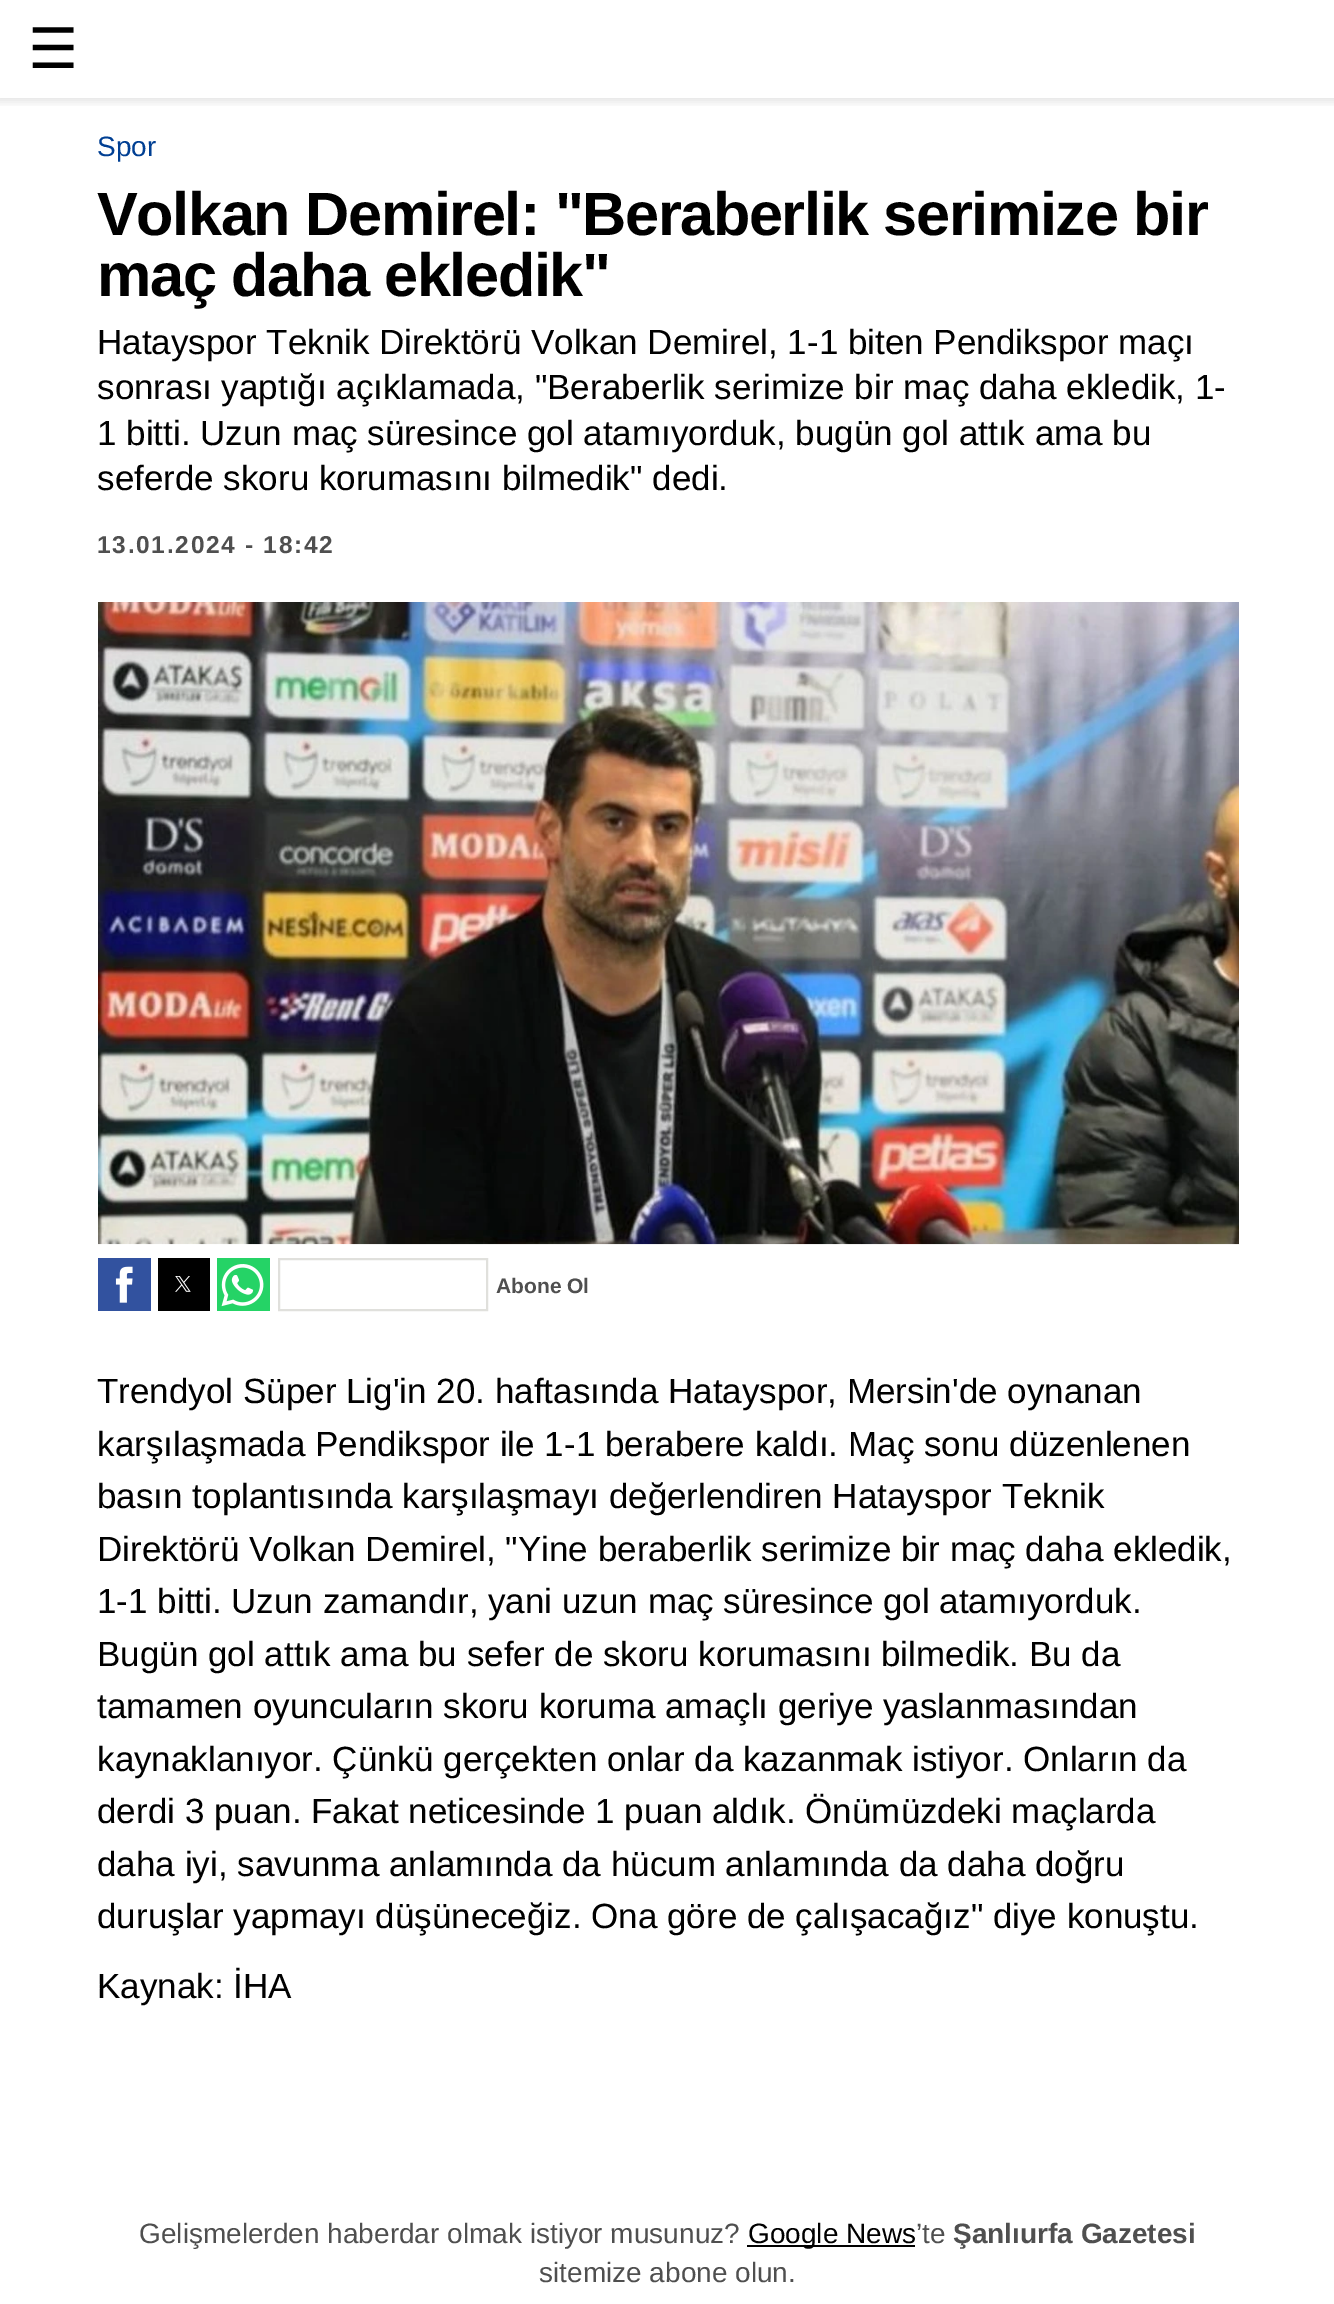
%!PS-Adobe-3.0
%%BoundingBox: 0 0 1334 2304
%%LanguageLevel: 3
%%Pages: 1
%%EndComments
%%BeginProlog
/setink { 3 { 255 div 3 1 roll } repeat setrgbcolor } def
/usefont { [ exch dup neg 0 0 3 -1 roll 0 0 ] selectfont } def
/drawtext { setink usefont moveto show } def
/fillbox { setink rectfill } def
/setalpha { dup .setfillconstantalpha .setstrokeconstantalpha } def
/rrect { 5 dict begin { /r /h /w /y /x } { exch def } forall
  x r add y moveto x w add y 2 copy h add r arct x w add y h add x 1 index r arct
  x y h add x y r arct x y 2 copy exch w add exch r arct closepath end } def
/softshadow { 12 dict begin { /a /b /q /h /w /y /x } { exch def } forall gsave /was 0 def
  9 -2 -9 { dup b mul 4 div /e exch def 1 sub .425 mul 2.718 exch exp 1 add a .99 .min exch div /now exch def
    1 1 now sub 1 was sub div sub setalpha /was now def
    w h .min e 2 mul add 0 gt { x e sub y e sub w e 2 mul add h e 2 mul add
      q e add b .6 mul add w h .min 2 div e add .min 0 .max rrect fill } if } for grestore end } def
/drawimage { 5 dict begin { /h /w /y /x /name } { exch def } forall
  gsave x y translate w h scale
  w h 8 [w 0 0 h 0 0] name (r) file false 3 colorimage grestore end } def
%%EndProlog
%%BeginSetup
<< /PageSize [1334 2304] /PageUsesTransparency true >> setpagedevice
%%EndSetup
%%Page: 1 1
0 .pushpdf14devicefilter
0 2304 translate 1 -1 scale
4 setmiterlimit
0 0 1334 2304 255 255 255 fillbox
gsave
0 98 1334 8 rectclip
0 0 0 setink
-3 -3 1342 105 0 4.5 0.1 softshadow
grestore
(☰) 28 68 /DejaVuSans-Regular 56 0 0 0 drawtext
(Spor) 97 156 /LiberationSans-Regular 28 0 63 147 drawtext
/LiberationSans-Bold 61.25 usefont
0 0 0 setink
97 235 moveto -1.4 0 (Volkan Demirel: "Beraberlik serimize bir) ashow
97 296 moveto -1.4 0 (maç daha ekledik") ashow
(Hatayspor Teknik Direktörü Volkan Demirel, 1-1 biten Pendikspor maçı) 97 354 /LiberationSans-Regular 35 0 0 0 drawtext
(sonrası yaptığı açıklamada, "Beraberlik serimize bir maç daha ekledik, 1-) 97 399 /LiberationSans-Regular 35 0 0 0 drawtext
(1 bitti. Uzun maç süresince gol atamıyorduk, bugün gol attık ama bu) 97 445 /LiberationSans-Regular 35 0 0 0 drawtext
(seferde skoru korumasını bilmedik" dedi.) 97 490 /LiberationSans-Regular 35 0 0 0 drawtext
/LiberationSans-Bold 24.5 usefont
79 79 79 setink
97 553 moveto 1.7 0 (13.01.2024 - 18:42) ashow
(assets/img1.rgb) 98 602 1141 643 drawimage
98 1258 53 53 50 82 159 fillbox
(assets/img2.rgb) 115 1266 18 37 drawimage
158 1258 52 53 0 0 0 fillbox
(assets/img3.rgb) 175 1276 16 16 drawimage
217 1258 53 53 37 211 102 fillbox
(assets/img4.rgb) 221 1264 43 43 drawimage
224 224 220 setink
2 setlinewidth
279 1259 208 51 rectstroke
(Abone Ol) 496 1293 /LiberationSans-Bold 21 79 79 79 drawtext
(Trendyol Süper Lig'in 20. haftasında Hatayspor, Mersin'de oynanan) 97 1403 /LiberationSans-Regular 35 0 0 0 drawtext
(karşılaşmada Pendikspor ile 1-1 berabere kaldı. Maç sonu düzenlenen) 97 1456 /LiberationSans-Regular 35 0 0 0 drawtext
(basın toplantısında karşılaşmayı değerlendiren Hatayspor Teknik) 97 1508 /LiberationSans-Regular 35 0 0 0 drawtext
(Direktörü Volkan Demirel, "Yine beraberlik serimize bir maç daha ekledik,) 97 1561 /LiberationSans-Regular 35 0 0 0 drawtext
(1-1 bitti. Uzun zamandır, yani uzun maç süresince gol atamıyorduk.) 97 1613 /LiberationSans-Regular 35 0 0 0 drawtext
(Bugün gol attık ama bu sefer de skoru korumasını bilmedik. Bu da) 97 1666 /LiberationSans-Regular 35 0 0 0 drawtext
(tamamen oyuncuların skoru koruma amaçlı geriye yaslanmasından) 97 1718 /LiberationSans-Regular 35 0 0 0 drawtext
(kaynaklanıyor. Çünkü gerçekten onlar da kazanmak istiyor. Onların da) 97 1771 /LiberationSans-Regular 35 0 0 0 drawtext
(derdi 3 puan. Fakat neticesinde 1 puan aldık. Önümüzdeki maçlarda) 97 1823 /LiberationSans-Regular 35 0 0 0 drawtext
(daha iyi, savunma anlamında da hücum anlamında da daha doğru) 97 1876 /LiberationSans-Regular 35 0 0 0 drawtext
(duruşlar yapmayı düşüneceğiz. Ona göre de çalışacağız" diye konuştu.) 97 1928 /LiberationSans-Regular 35 0 0 0 drawtext
(Kaynak: İHA) 97 1998 /LiberationSans-Regular 35 0 0 0 drawtext
(Gelişmelerden haberdar olmak istiyor musunuz?) 139 2243 /LiberationSans-Regular 28 79 79 79 drawtext
747 2245 168 2 0 0 0 fillbox
(Google News) 748 2243 /LiberationSans-Regular 28 0 0 0 drawtext
(’te) 916 2243 /LiberationSans-Regular 28 79 79 79 drawtext
(Şanlıurfa Gazetesi) 953 2243 /LiberationSans-Bold 28 79 79 79 drawtext
(sitemize abone olun.) 539 2282 /LiberationSans-Regular 28 79 79 79 drawtext
.poppdf14devicefilter showpage
%%EOF
